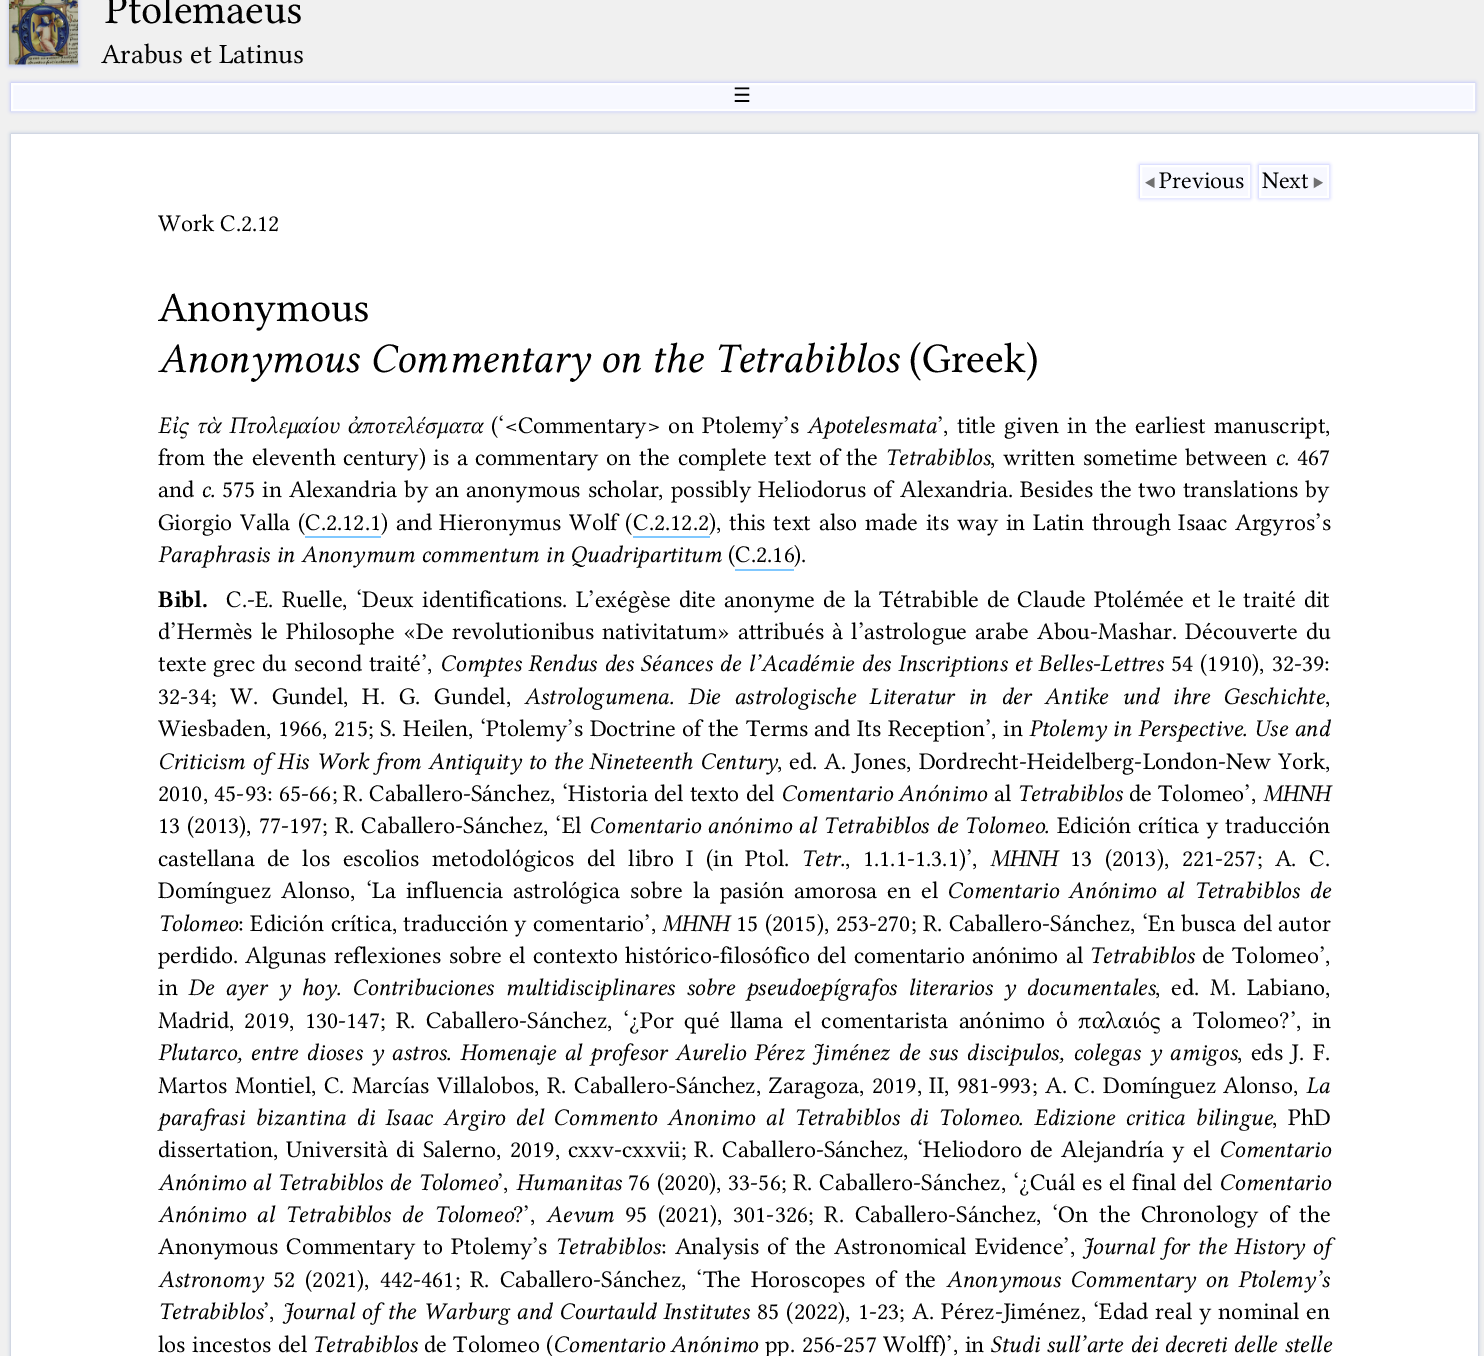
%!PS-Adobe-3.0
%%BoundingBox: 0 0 1484 1356
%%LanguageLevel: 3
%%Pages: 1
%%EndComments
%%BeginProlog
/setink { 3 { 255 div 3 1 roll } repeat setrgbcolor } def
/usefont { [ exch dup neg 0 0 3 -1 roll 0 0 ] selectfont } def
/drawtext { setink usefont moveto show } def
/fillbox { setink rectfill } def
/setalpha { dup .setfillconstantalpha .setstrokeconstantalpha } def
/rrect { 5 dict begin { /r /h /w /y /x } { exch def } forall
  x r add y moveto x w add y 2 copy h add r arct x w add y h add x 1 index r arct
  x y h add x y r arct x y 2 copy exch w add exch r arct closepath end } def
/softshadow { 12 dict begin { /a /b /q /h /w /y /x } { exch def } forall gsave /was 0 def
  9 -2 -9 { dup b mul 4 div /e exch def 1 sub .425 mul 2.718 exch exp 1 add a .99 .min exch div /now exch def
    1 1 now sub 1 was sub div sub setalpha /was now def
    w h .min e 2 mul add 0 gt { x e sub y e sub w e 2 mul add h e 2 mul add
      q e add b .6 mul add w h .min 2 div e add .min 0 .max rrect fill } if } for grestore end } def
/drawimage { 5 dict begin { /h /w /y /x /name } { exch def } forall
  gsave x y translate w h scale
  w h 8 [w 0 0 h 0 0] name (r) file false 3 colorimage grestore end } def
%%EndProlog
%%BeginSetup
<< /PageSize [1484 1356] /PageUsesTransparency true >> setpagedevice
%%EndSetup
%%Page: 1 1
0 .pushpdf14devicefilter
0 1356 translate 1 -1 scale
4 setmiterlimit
0 0 1484 1356 240 240 240 fillbox
176 192 244 setink
9 -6 69 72 0 2 1 softshadow
(assets/img1.rgb) 9 0 69 65 drawimage
(Ptolemaeus) 105 23 /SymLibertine-Regular 42.25 0 0 0 drawtext
(Arabus et Latinus) 101 63 /SymLibertine-Regular 28 0 0 0 drawtext
170 175 255 setink
11 83 1464 28 0 2 1 softshadow
247 248 255 setink
12 84 moveto 1474 84 lineto 1474 110 lineto 12 110 lineto closepath gsave fill grestore
255 255 255 setink
2 setlinewidth
stroke
(☰) 733 102 /DejaVuSans-Regular 20 0 0 0 drawtext
160 176 208 setink
11 134 1467 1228 0 2 1 softshadow
11 134 1467 1222 255 255 255 fillbox
170 175 255 setink
1140 165 110 33 0 2 1 softshadow
247 248 255 setink
1141 166 moveto 1249 166 lineto 1249 197 lineto 1141 197 lineto closepath gsave fill grestore
255 255 255 setink
stroke
(◀) 1144 188 /SymLibertine-Regular 24 112 112 112 drawtext
(Previous) 1159 188 /SymLibertine-Regular 24 0 0 0 drawtext
170 175 255 setink
1259 165 70 33 0 2 1 softshadow
247 248 255 setink
1260 166 moveto 1328 166 lineto 1328 197 lineto 1260 197 lineto closepath gsave fill grestore
255 255 255 setink
stroke
(Next) 1262 188 /SymLibertine-Regular 24 0 0 0 drawtext
(▶) 1312 188 /SymLibertine-Regular 24 112 112 112 drawtext
(Work C.2.12) 158 231 /SymLibertine-Regular 24 0 0 0 drawtext
(Anonymous) 158 321 /SymLibertine-Regular 42.25 0 0 0 drawtext
(Anonymous Commentary on the Tetrabiblos) 158 372 /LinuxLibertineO-Italic 42.25 0 0 0 drawtext
(\(Greek\)) 909 372 /SymLibertine-Regular 42.25 0 0 0 drawtext
/LinuxLibertineO-Italic 24 usefont
158 433 moveto 2.5 0 32 (Εἰς τὰ Πτολεμαίου ἀποτελέσματα) widthshow
/SymLibertine-Regular 24 usefont
491 433 moveto 2.5 0 32 (\(‘<Commentary> on Ptolemy’s) widthshow
(Apotelesmata) 807 433 /LinuxLibertineO-Italic 24 0 0 0 drawtext
/SymLibertine-Regular 24 usefont
937 433 moveto 2.5 0 32 (’, title given in the earliest manuscript,) widthshow
158 465 moveto 1.5 0 32 (from the eleventh century\) is a commentary on the complete text of the) widthshow
(Tetrabiblos) 885 465 /LinuxLibertineO-Italic 24 0 0 0 drawtext
/SymLibertine-Regular 24 usefont
990 465 moveto 1.5 0 32 (, written sometime between) widthshow
(c.) 1275 465 /LinuxLibertineO-Italic 24 0 0 0 drawtext
(467) 1297 465 /SymLibertine-Regular 24 0 0 0 drawtext
(and) 158 497 /SymLibertine-Regular 24 0 0 0 drawtext
(c.) 201 497 /LinuxLibertineO-Italic 24 0 0 0 drawtext
/SymLibertine-Regular 24 usefont
222 497 moveto 1 0 32 (575 in Alexandria by an anonymous scholar, possibly Heliodorus of Alexandria. Besides the two translations by) widthshow
158 530 moveto 1.5 0 32 (Giorgio Valla \() widthshow
(C.2.12.1) 305 530 /SymLibertine-Regular 24 0 0 0 drawtext
305 536 76 2 128 200 255 fillbox
0 0 0 setink
381 530 moveto 1.5 0 32 (\) and Hieronymus Wolf \() widthshow
(C.2.12.2) 633 530 /SymLibertine-Regular 24 0 0 0 drawtext
633 536 77 2 128 200 255 fillbox
0 0 0 setink
709 530 moveto 1.75 0 32 (\), this text also made its way in Latin through Isaac Argyros’s) widthshow
(Paraphrasis in Anonymum commentum in Quadripartitum) 158 562 /LinuxLibertineO-Italic 24 0 0 0 drawtext
(\(C.2.16) 728 562 /SymLibertine-Regular 24 0 0 0 drawtext
(\).) 794 562 /SymLibertine-Regular 24 0 0 0 drawtext
735 569 59 2 128 200 255 fillbox
(Bibl.) 158 607 /LinuxLibertineO-Bold 24 0 0 0 drawtext
/SymLibertine-Regular 24 usefont
226 607 moveto 2 0 32 (C.-E. Ruelle, ‘Deux identifications. L’exégèse dite anonyme de la Tétrabible de Claude Ptolémée et le traité dit) widthshow
158 639 moveto 2.25 0 32 (d’Hermès le Philosophe «De revolutionibus nativitatum» attribués à l’astrologue arabe Abou-Mashar. Découverte du) widthshow
158 671 moveto 1 0 32 (texte grec du second traité’,) widthshow
/LinuxLibertineO-Italic 24 usefont
440 671 moveto 1 0 32 (Comptes Rendus des Séances de l’Académie des Inscriptions et Belles-Lettres) widthshow
/SymLibertine-Regular 24 usefont
1171 671 moveto 1 0 32 (54 \(1910\), 32-39:) widthshow
158 704 moveto 7.75 0 32 (32-34; W. Gundel, H. G. Gundel,) widthshow
/LinuxLibertineO-Italic 24 usefont
524 704 moveto 7.75 0 32 (Astrologumena. Die astrologische Literatur in der Antike und ihre Geschichte) widthshow
(,) 1325 704 /SymLibertine-Regular 24 0 0 0 drawtext
158 736 moveto 0.5 0 32 (Wiesbaden, 1966, 215; S. Heilen, ‘Ptolemy’s Doctrine of the Terms and Its Reception’, in) widthshow
/LinuxLibertineO-Italic 24 usefont
1029 736 moveto 0.5 0 32 (Ptolemy in Perspective. Use and) widthshow
/SymLibertine-Regular 24 usefont
777 769 moveto 1 0 32 (, ed. A. Jones, Dordrecht-Heidelberg-London-New York,) widthshow
/LinuxLibertineO-Italic 24 usefont
158 769 moveto 1 0 32 (Criticism of His Work from Antiquity to the Nineteenth Century) widthshow
/SymLibertine-Regular 24 usefont
158 801 moveto 0.25 0 32 (2010, 45-93: 65-66; R. Caballero-Sánchez, ‘Historia del texto del) widthshow
(Comentario Anόnimo) 781 801 /LinuxLibertineO-Italic 24 0 0 0 drawtext
(al) 994 801 /SymLibertine-Regular 24 0 0 0 drawtext
(Tetrabiblos) 1017 801 /LinuxLibertineO-Italic 24 0 0 0 drawtext
(de Tolomeo’,) 1129 801 /SymLibertine-Regular 24 0 0 0 drawtext
(MHNH) 1263 801 /LinuxLibertineO-Italic 24 0 0 0 drawtext
/SymLibertine-Regular 24 usefont
158 833 moveto 1 0 32 (13 \(2013\), 77-197; R. Caballero-Sánchez, ‘El) widthshow
/LinuxLibertineO-Italic 24 usefont
589 833 moveto 1 0 32 (Comentario anόnimo al Tetrabiblos de Tolomeo.) widthshow
/SymLibertine-Regular 24 usefont
1057 833 moveto 1 0 32 (Ediciόn crítica y traducciόn) widthshow
158 866 moveto 6.5 0 32 (castellana de los escolios metodolόgicos del libro I \(in Ptol.) widthshow
(Tetr.) 801 866 /LinuxLibertineO-Italic 24 0 0 0 drawtext
/SymLibertine-Regular 24 usefont
845 866 moveto 6.5 0 32 (, 1.1.1-1.3.1\)’,) widthshow
(MHNH) 990 866 /LinuxLibertineO-Italic 24 0 0 0 drawtext
/SymLibertine-Regular 24 usefont
1070 866 moveto 6.5 0 32 (13 \(2013\), 221-257; A. C.) widthshow
158 898 moveto 3.9 0 32 (Domínguez Alonso, ‘La influencia astrológica sobre la pasión amorosa en el) widthshow
/LinuxLibertineO-Italic 24 usefont
947 898 moveto 3.9 0 32 (Comentario Anónimo al Tetrabiblos de) widthshow
(Tolomeo) 158 931 /LinuxLibertineO-Italic 24 0 0 0 drawtext
/SymLibertine-Regular 24 usefont
238 931 moveto 0.5 0 32 (: Edición crítica, traducción y comentario’,) widthshow
(MHNH) 662 931 /LinuxLibertineO-Italic 24 0 0 0 drawtext
/SymLibertine-Regular 24 usefont
736 931 moveto 0.5 0 32 (15 \(2015\), 253-270; R. Caballero-Sánchez, ‘En busca del autor) widthshow
158 963 moveto 1.25 0 32 (perdido. Algunas reflexiones sobre el contexto histórico-filosófico del comentario anónimo al) widthshow
(Tetrabiblos) 1089 963 /LinuxLibertineO-Italic 24 0 0 0 drawtext
/SymLibertine-Regular 24 usefont
1202 963 moveto 1.25 0 32 (de Tolomeo’,) widthshow
(in) 158 995 /SymLibertine-Regular 24 0 0 0 drawtext
/LinuxLibertineO-Italic 24 usefont
188 995 moveto 5 0 32 (De ayer y hoy. Contribuciones multidisciplinares sobre pseudoepígrafos literarios y documentales) widthshow
/SymLibertine-Regular 24 usefont
1155 995 moveto 5 0 32 (, ed. M. Labiano,) widthshow
158 1028 moveto 4.4 0 32 (Madrid, 2019, 130-147; R. Caballero-Sánchez, ‘¿Por qué llama el comentarista anónimo ὁ παλαιός a Tolomeo?’, in) widthshow
/LinuxLibertineO-Italic 24 usefont
158 1060 moveto 2.5 0 32 (Plutarco, entre dioses y astros. Homenaje al profesor Aurelio Pérez Jiménez de sus discipulos, colegas y amigos) widthshow
/SymLibertine-Regular 24 usefont
1237 1060 moveto 2.5 0 32 (, eds J. F.) widthshow
158 1093 moveto 1.6 0 32 (Martos Montiel, C. Marcías Villalobos, R. Caballero-Sánchez, Zaragoza, 2019, II, 981-993; A. C. Domínguez Alonso,) widthshow
(La) 1306 1093 /LinuxLibertineO-Italic 24 0 0 0 drawtext
158 1125 moveto 4.4 0 32 (parafrasi bizantina di Isaac Argiro del Commento Anonimo al Tetrabiblos di Tolomeo. Edizione critica bilingue) widthshow
/SymLibertine-Regular 24 usefont
1272 1125 moveto 4.4 0 32 (, PhD) widthshow
158 1157 moveto 2.25 0 32 (dissertation, Università di Salerno, 2019, cxxv-cxxvii; R. Caballero-Sánchez, ‘Heliodoro de Alejandría y el) widthshow
(Comentario) 1219 1157 /LinuxLibertineO-Italic 24 0 0 0 drawtext
158 1190 moveto 0.75 0 32 (Anónimo al Tetrabiblos de Tolomeo) widthshow
(’,) 497 1190 /SymLibertine-Regular 24 0 0 0 drawtext
(Humanitas) 516 1190 /LinuxLibertineO-Italic 24 0 0 0 drawtext
/SymLibertine-Regular 24 usefont
628 1190 moveto 0.75 0 32 (76 \(2020\), 33-56; R. Caballero-Sánchez, ‘¿Cuál es el final del) widthshow
(Comentario) 1219 1190 /LinuxLibertineO-Italic 24 0 0 0 drawtext
158 1222 moveto 4.75 0 32 (Anónimo al Tetrabiblos de Tolomeo) widthshow
(?’,) 513 1222 /SymLibertine-Regular 24 0 0 0 drawtext
(Aevum) 546 1222 /LinuxLibertineO-Italic 24 0 0 0 drawtext
/SymLibertine-Regular 24 usefont
625 1222 moveto 4.75 0 32 (95 \(2021\), 301-326; R. Caballero-Sánchez, ‘On the Chronology of the) widthshow
158 1254 moveto 2 0 32 (Anonymous Commentary to Ptolemy’s) widthshow
(Tetrabiblos) 555 1254 /LinuxLibertineO-Italic 24 0 0 0 drawtext
/SymLibertine-Regular 24 usefont
661 1254 moveto 2 0 32 (: Analysis of the Astronomical Evidence’,) widthshow
/LinuxLibertineO-Italic 24 usefont
1082 1254 moveto 2 0 32 (Journal for the History of) widthshow
(Astronomy) 158 1287 /LinuxLibertineO-Italic 24 0 0 0 drawtext
/SymLibertine-Regular 24 usefont
273 1287 moveto 4 0 32 (52 \(2021\), 442-461; R. Caballero-Sánchez, ‘The Horoscopes of the) widthshow
/LinuxLibertineO-Italic 24 usefont
946 1287 moveto 4 0 32 (Anonymous Commentary on Ptolemy’s) widthshow
(Tetrabiblos) 158 1319 /LinuxLibertineO-Italic 24 0 0 0 drawtext
(’,) 263 1319 /SymLibertine-Regular 24 0 0 0 drawtext
/LinuxLibertineO-Italic 24 usefont
282 1319 moveto 1.1 0 32 (Journal of the Warburg and Courtauld Institutes) widthshow
/SymLibertine-Regular 24 usefont
757 1319 moveto 1.1 0 32 (85 \(2022\), 1-23; A. Pérez-Jiménez, ‘Edad real y nominal en) widthshow
158 1352 moveto 0.5 0 32 (los incestos del) widthshow
(Tetrabiblos) 312 1352 /LinuxLibertineO-Italic 24 0 0 0 drawtext
/SymLibertine-Regular 24 usefont
424 1352 moveto 0.5 0 32 (de Tolomeo \() widthshow
(Comentario Anónimo) 553 1352 /LinuxLibertineO-Italic 24 0 0 0 drawtext
/SymLibertine-Regular 24 usefont
765 1352 moveto 0.5 0 32 (pp. 256-257 Wolff\)’, in) widthshow
/LinuxLibertineO-Italic 24 usefont
990 1352 moveto 0.5 0 32 (Studi sull’arte dei decreti delle stelle) widthshow
.poppdf14devicefilter showpage
%%EOF
